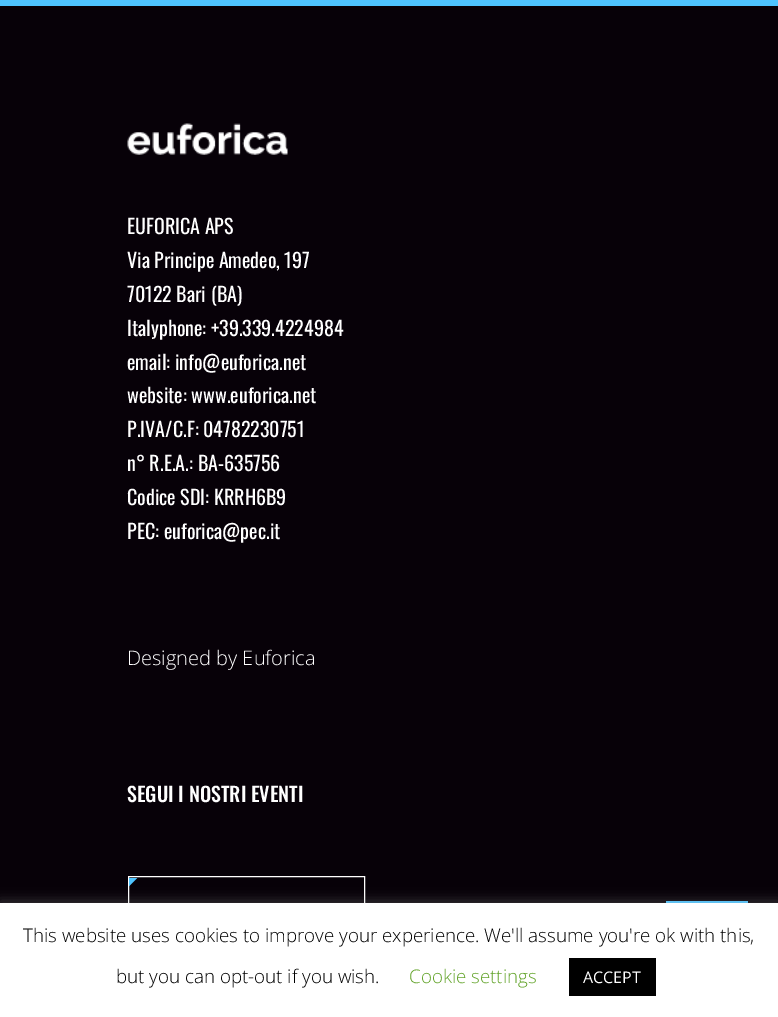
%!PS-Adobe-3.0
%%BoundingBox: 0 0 778 1017
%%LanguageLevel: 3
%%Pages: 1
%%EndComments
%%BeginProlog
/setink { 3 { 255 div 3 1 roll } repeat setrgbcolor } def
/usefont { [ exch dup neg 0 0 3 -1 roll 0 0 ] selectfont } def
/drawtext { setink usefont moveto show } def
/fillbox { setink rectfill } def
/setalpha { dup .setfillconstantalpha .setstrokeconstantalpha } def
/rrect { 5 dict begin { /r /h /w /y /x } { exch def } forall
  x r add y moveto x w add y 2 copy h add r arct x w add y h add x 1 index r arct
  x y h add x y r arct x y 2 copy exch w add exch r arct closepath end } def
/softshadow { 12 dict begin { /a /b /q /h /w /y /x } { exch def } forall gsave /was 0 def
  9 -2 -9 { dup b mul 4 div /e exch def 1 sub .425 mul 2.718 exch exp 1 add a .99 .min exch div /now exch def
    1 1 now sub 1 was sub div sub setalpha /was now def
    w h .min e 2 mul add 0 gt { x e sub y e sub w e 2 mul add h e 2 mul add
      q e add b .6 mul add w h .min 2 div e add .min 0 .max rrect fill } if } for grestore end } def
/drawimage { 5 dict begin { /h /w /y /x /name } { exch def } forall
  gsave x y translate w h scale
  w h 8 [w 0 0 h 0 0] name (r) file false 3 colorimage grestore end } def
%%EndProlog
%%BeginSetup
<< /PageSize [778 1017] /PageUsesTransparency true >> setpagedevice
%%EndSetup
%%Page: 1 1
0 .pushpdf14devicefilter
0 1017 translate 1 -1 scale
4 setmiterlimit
0 0 778 1017 7 1 8 fillbox
0 0 778 6 78 196 255 fillbox
(assets/img1.rgb) 127 123 161 32 drawimage
(EUFORICA APS) 127 234 /Oswald-Regular 20 255 255 255 drawtext
(Via Principe Amedeo, 197) 127 268 /Oswald-Regular 20 255 255 255 drawtext
(70122 Bari \(BA\)) 127 302 /Oswald-Regular 20 255 255 255 drawtext
(Italyphone: +39.339.4224984) 127 336 /Oswald-Regular 20 255 255 255 drawtext
(email: info@euforica.net) 127 370 /Oswald-Regular 20 255 255 255 drawtext
(website: www.euforica.net) 127 403 /Oswald-Regular 20 255 255 255 drawtext
(P.IVA/C.F: 04782230751) 127 437 /Oswald-Regular 20 255 255 255 drawtext
(n° R.E.A.: BA-635756) 127 471 /Oswald-Regular 20 255 255 255 drawtext
(Codice SDI: KRRH6B9) 127 505 /Oswald-Regular 20 255 255 255 drawtext
(PEC: euforica@pec.it) 127 539 /Oswald-Regular 20 255 255 255 drawtext
(Designed by Euforica) 127 665 /OpenSans-Light 20 255 255 255 drawtext
(SEGUI I NOSTRI EVENTI) 127 802 /Oswald-Medium 20 255 255 255 drawtext
128.5 876.5 236 64 rectstroke
gsave
129 878 235 62 rectclip
78 196 255 setink
-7 523 moveto 243 772 lineto 66 949 lineto -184 700 lineto closepath fill
grestore
666 901 82 2 78 196 255 fillbox
172 171 171 setink
0 901 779 115 0 6 0.3 softshadow
0 903 778 114 255 255 255 fillbox
(This website uses cookies to improve your experience. We'll assume you're ok with this,) 23 942 /OpenSans-Light 18.75 0 0 0 drawtext
(but you can opt-out if you wish.) 116 983 /OpenSans-Light 18.75 0 0 0 drawtext
(Cookie settings) 409 983 /OpenSans-Light 18.75 98 163 41 drawtext
569 958 87 38 0 0 0 fillbox
(ACCEPT) 583 983 /OpenSans-Regular 16 255 255 255 drawtext
.poppdf14devicefilter showpage
%%EOF
